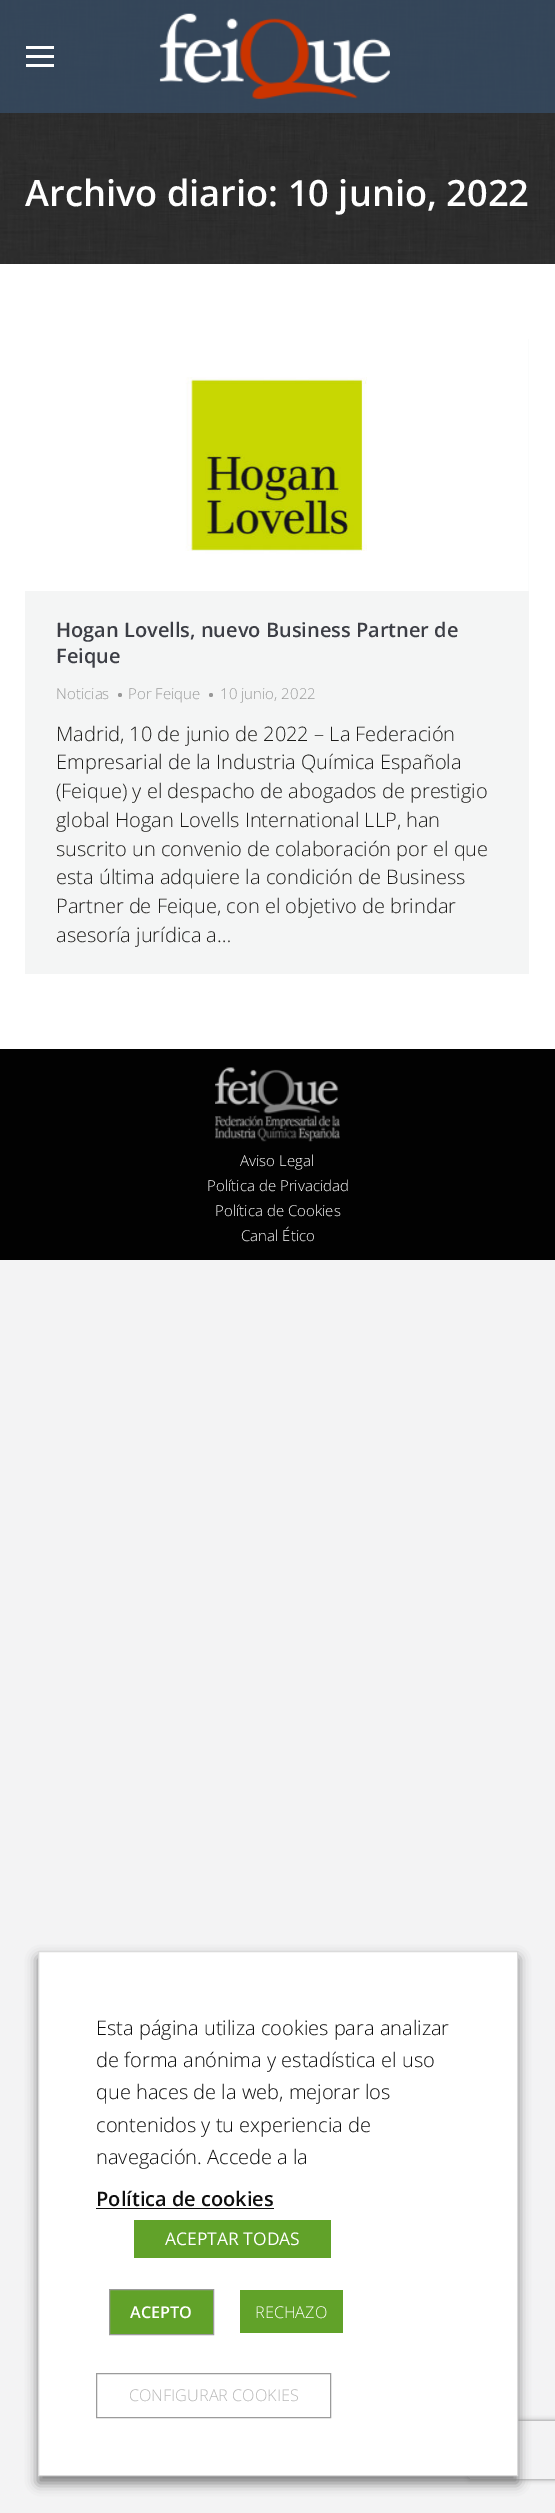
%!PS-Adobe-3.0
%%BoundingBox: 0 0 555 2513
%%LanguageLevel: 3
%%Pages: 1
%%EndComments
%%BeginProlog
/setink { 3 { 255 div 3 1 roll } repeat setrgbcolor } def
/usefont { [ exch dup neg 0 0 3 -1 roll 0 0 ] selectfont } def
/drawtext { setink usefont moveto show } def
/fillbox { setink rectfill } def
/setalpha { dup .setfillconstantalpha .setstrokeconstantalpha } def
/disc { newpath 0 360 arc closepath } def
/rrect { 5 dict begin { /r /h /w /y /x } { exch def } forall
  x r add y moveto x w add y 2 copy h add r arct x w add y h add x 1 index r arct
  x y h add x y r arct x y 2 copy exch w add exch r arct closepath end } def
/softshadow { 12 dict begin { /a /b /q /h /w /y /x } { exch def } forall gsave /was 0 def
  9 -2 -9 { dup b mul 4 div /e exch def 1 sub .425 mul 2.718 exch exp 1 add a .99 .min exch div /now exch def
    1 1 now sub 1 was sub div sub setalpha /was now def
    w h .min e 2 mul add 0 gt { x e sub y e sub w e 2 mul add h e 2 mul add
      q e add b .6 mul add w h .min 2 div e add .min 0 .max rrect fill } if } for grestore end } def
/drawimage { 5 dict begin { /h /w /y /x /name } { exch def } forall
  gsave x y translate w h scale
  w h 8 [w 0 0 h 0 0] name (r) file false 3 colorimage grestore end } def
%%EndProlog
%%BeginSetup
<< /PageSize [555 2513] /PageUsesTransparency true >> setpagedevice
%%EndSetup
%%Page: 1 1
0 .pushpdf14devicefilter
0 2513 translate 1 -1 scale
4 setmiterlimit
0 0 555 2513 243 243 244 fillbox
0 264 555 785 255 255 255 fillbox
(assets/img2.rgb) 0 0 555 264 drawimage
0.82 setalpha
0 0 555 113 54 75 99 fillbox
1 setalpha
26 46 28 3 255 255 255 fillbox
26 55 28 3 255 255 255 fillbox
26 64 28 3 255 255 255 fillbox
(assets/img1.rgb) 159 13 231 86 drawimage
(Archivo diario: 10 junio, 2022) 25 206 /OpenSans-SemiBold 36.25 255 255 255 drawtext
25 339 504 635 244 245 245 fillbox
(assets/img3.rgb) 25 339 504 252 drawimage
(Hogan Lovells, nuevo Business Partner de) 56 637 /OpenSans-SemiBold 20 60 62 69 drawtext
(Feique) 56 663 /OpenSans-SemiBold 20 60 62 69 drawtext
(Noticias) 56 699 /OpenSans-Light 15 153 153 153 drawtext
120 695 2 disc fill
(Por Feique) 128 699 /OpenSans-Light 15 153 153 153 drawtext
211 695 2 disc fill
(10 junio, 2022) 220 699 /OpenSans-Light 15 153 153 153 drawtext
(Madrid, 10 de junio de 2022 – La Federación) 56 741 /OpenSans-Light 20 30 29 27 drawtext
(Empresarial de la Industria Química Española) 56 769 /OpenSans-Light 20 30 29 27 drawtext
(\(Feique\) y el despacho de abogados de prestigio) 56 798 /OpenSans-Light 20 30 29 27 drawtext
(global Hogan Lovells International LLP, han) 56 827 /OpenSans-Light 20 30 29 27 drawtext
(suscrito un convenio de colaboración por el que) 56 856 /OpenSans-Light 20 30 29 27 drawtext
(esta última adquiere la condición de Business) 56 884 /OpenSans-Light 20 30 29 27 drawtext
(Partner de Feique, con el objetivo de brindar) 56 913 /OpenSans-Light 20 30 29 27 drawtext
(asesoría jurídica a…) 56 942 /OpenSans-Light 20 30 29 27 drawtext
0 1049 555 211 2 2 2 fillbox
(assets/img4.rgb) 215 1067 125 75 drawimage
(Aviso Legal) 240 1166 /OpenSans-Light 15 255 255 255 drawtext
(Política de Privacidad) 207 1191 /OpenSans-Light 15 255 255 255 drawtext
(Política de Cookies) 215 1216 /OpenSans-Light 15 255 255 255 drawtext
(Canal Ético) 241 1241 /OpenSans-Light 15 255 255 255 drawtext
0 0 0 setink
38 1958 480 525 0 6 0.5 softshadow
gsave
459 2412 moveto 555 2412 lineto 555 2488 lineto 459 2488 lineto closepath 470 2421 moveto 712 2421 lineto 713 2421 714 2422 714 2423 curveto 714 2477 lineto 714 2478 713 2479 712 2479 curveto 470 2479 lineto 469 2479 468 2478 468 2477 curveto 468 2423 lineto 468 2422 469 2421 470 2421 curveto closepath eoclip newpath
128 128 128 setink
468 2421 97 58 2 2.5 1 softshadow
grestore
255 255 255 setink
38.5 1951.5 moveto 517.5 1951.5 lineto 517.5 2475.5 lineto 38.5 2475.5 lineto closepath gsave fill grestore
219 219 219 setink
stroke
(Esta página utiliza cookies para analizar) 96 2035 /OpenSans-Light 20 14 14 14 drawtext
(de forma anónima y estadística el uso) 96 2067 /OpenSans-Light 20 14 14 14 drawtext
(que haces de la web, mejorar los) 96 2099 /OpenSans-Light 20 14 14 14 drawtext
(contenidos y tu experiencia de) 96 2132 /OpenSans-Light 20 14 14 14 drawtext
(navegación. Accede a la) 96 2164 /OpenSans-Light 20 14 14 14 drawtext
(Política de cookies) 96 2206 /OpenSans-SemiBold 20 14 14 14 drawtext
96 2208 178 1 14 14 14 fillbox
134 2220 197 38 97 162 41 fillbox
(ACEPTAR TODAS) 165 2245 /OpenSans-Regular 17.5 255 255 255 drawtext
97 162 41 setink
109.5 2289.5 moveto 213.5 2289.5 lineto 213.5 2334.5 lineto 109.5 2334.5 lineto closepath gsave fill grestore
155 155 155 setink
stroke
(ACEPTO) 130 2318 /OpenSans-SemiBold 16.25 255 255 255 drawtext
240 2290 103 43 97 162 41 fillbox
(RECHAZO) 255 2318 /OpenSans-Light 16.25 255 255 255 drawtext
155 155 155 setink
96.5 2373.5 234 44 rectstroke
(CONFIGURAR COOKIES) 129 2401 /OpenSans-Light 16.25 183 183 183 drawtext
.poppdf14devicefilter showpage
%%EOF
